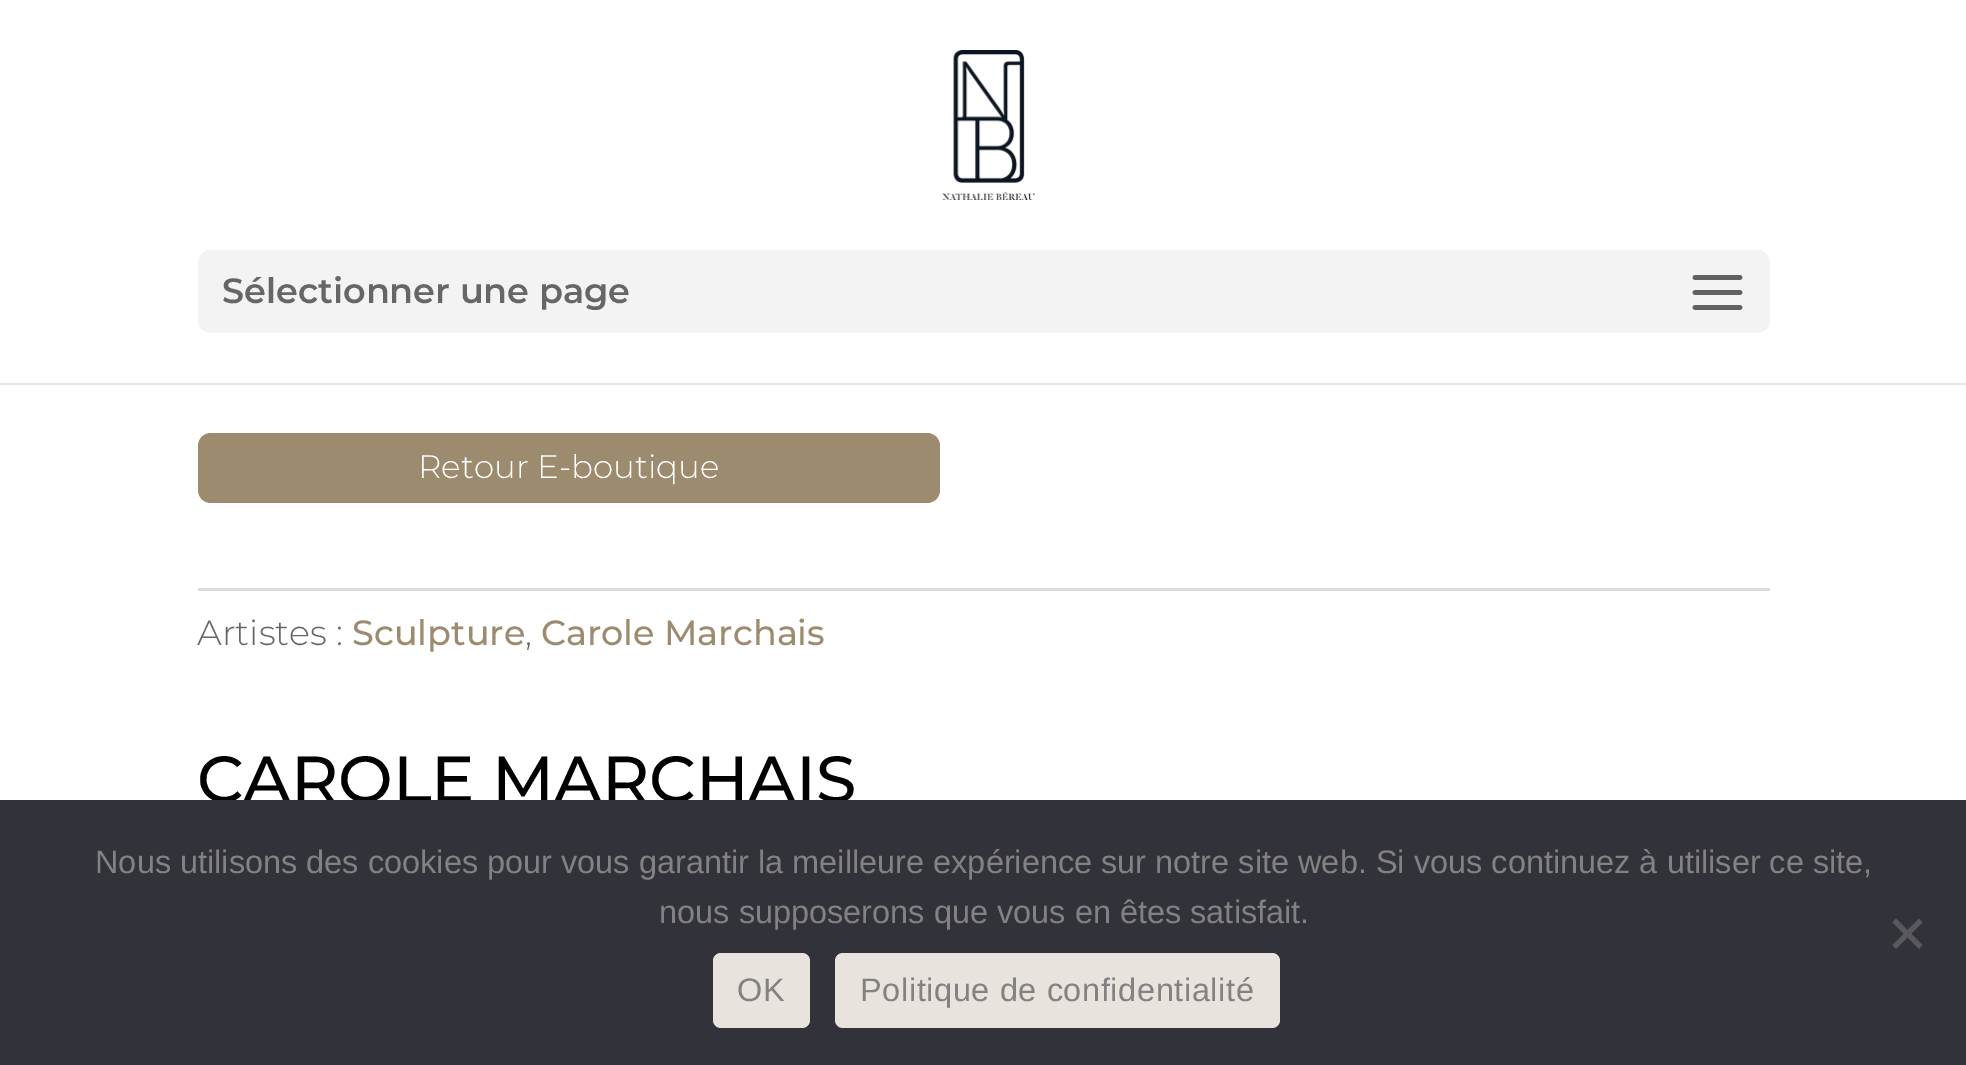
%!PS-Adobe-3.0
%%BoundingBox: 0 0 1966 1065
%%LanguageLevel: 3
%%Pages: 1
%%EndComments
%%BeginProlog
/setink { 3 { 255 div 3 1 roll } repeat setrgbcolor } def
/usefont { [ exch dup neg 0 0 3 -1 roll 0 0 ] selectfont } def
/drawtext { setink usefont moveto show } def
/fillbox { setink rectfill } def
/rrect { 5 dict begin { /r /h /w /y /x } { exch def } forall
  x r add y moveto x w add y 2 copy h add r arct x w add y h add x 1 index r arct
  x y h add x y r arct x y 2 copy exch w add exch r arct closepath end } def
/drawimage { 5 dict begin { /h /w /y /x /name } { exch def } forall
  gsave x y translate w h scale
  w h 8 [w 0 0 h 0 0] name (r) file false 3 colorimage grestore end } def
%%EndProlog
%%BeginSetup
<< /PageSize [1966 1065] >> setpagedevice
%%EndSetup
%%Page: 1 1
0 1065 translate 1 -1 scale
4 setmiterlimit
0 0 1966 1065 255 255 255 fillbox
230 230 230 setink
0 382 moveto 0 385 lineto 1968 385 lineto 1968 3 lineto 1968 382 lineto closepath fill
0 382 1966 1 255 255 255 fillbox
(assets/img1.rgb) 942 50 93 150 drawimage
243 243 243 setink
198 250 1572 83 13 rrect fill
(Sélectionner une page) 222 303 /Montserrat-SemiBold 35 102 102 102 drawtext
(assets/img2.rgb) 1692 275 51 35 drawimage
157 139 111 setink
198 433 742 70 13 rrect fill
(Retour E-boutique) 418 478 /Montserrat-Light 32.5 255 255 255 drawtext
198 588 1572 3 218 218 218 fillbox
(Artistes :) 197 645 /Montserrat-Light 35 102 102 102 drawtext
(Sculpture) 352 645 /Montserrat-Medium 35 157 139 111 drawtext
(,) 525 645 /Montserrat-Light 35 102 102 102 drawtext
(Carole Marchais) 541 645 /Montserrat-Medium 35 157 139 111 drawtext
(CAROLE MARCHAIS) 197 802 /Montserrat-Medium 65 0 0 0 drawtext
0 800 1966 265 50 50 58 fillbox
(Nous utilisons des cookies pour vous garantir la meilleure expérience sur notre site web. Si vous continuez à utiliser ce site,) 95 873 /LiberationSans-Regular 32.5 130 130 130 drawtext
(nous supposerons que vous en êtes satisfait.) 659 923 /LiberationSans-Regular 32.5 130 130 130 drawtext
89 89 93 setink
1919 918.5 moveto 1922.5 922.5 lineto 1896 949 lineto 1892.5 945 lineto closepath fill
1892.5 922.5 moveto 1896 918.5 lineto 1922.5 945 lineto 1919 949 lineto closepath fill
232 228 221 setink
713 953 97 75 8 rrect fill
130 130 130 setink
737 1001 moveto 0.6 0 (OK) ashow
232 228 221 setink
835 953 445 75 8 rrect fill
130 130 130 setink
860 1001 moveto 0.6 0 (Politique de confidentialité) ashow
showpage
%%EOF
